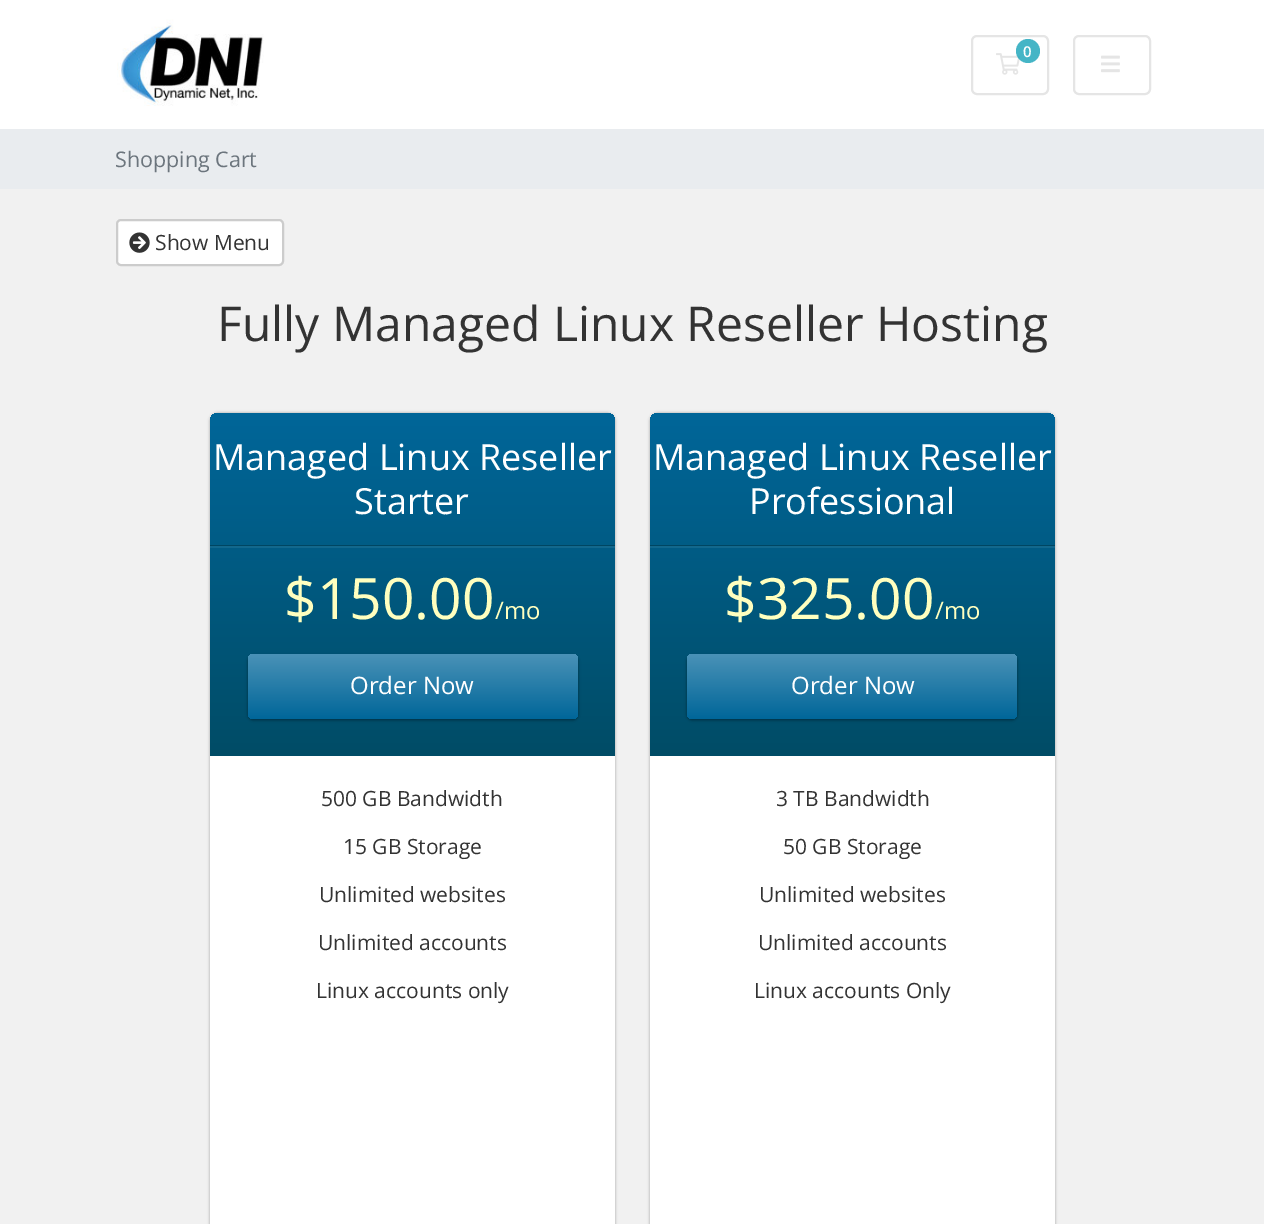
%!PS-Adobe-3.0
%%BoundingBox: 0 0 1264 1224
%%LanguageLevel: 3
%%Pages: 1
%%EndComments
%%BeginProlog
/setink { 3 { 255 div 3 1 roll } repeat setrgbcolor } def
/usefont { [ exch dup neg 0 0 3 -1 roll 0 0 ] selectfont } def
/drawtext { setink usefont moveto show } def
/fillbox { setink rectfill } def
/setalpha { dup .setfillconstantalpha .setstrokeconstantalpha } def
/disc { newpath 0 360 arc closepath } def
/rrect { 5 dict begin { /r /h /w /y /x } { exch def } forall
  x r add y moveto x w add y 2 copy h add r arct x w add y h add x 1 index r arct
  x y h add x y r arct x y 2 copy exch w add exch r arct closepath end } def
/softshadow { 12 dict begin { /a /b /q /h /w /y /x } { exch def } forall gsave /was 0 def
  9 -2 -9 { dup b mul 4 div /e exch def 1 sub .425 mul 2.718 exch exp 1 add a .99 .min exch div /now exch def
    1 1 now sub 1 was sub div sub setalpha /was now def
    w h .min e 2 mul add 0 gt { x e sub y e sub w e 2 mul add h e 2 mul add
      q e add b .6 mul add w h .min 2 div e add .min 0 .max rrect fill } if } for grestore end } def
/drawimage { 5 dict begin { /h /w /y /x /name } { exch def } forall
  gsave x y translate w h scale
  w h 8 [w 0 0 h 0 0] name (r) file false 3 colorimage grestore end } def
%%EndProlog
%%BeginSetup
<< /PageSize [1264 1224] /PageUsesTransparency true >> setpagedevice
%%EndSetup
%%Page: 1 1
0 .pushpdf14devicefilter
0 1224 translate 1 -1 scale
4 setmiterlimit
0 0 1264 1224 241 241 241 fillbox
0 0 1264 129 255 255 255 fillbox
(assets/img1.rgb) 117 19 147 87 drawimage
229 229 229 setink
2 setlinewidth
972 36 76 58 5 rrect stroke
(assets/img2.rgb) 996 53 25 22 drawimage
0.8 setalpha
23 162 184 setink
1028 51 12 disc fill
1 setalpha
(0) 1023 57 /OpenSans-SemiBold 15 255 255 255 drawtext
229 229 229 setink
1074 36 76 58 5 rrect stroke
(assets/img3.rgb) 1101 55 19 18 drawimage
0 129 1264 60 233 236 239 fillbox
(Shopping Cart) 115 167 /OpenSans-Regular 21.5 108 117 125 drawtext
255 255 255 setink
117 220 166 45 4 rrect gsave fill grestore
204 204 204 setink
stroke
(assets/img4.rgb) 129 232 21 21 drawimage
(Show Menu) 155 250 /OpenSans-Regular 21 51 51 51 drawtext
(Fully Managed Linux Reseller Hosting) 217 341 /OpenSans-Regular 48 51 51 51 drawtext
0 0 0 setink
210 413 405 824 8 1.5 0.3 softshadow
255 255 255 setink
210 413 405 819 8 rrect fill
gsave 218 413 moveto 607 413 lineto 611.5 413 615 416.5 615 421 curveto 615 756 lineto 210 756 lineto 210 421 lineto 210 416.5 213.5 413 218 413 curveto closepath clip newpath
<< /ShadingType 2 /ColorSpace /DeviceRGB /Coords [413 413 413 756] /Extend [true true] /Function << /FunctionType 2 /Domain [0 1] /C0 [0 0.4 0.6] /C1 [0 0.298 0.4] /N 1 >> >> shfill grestore
210 545 405 1 0 70 98 fillbox
(Managed Linux Reseller) 213 470 /OpenSans-Regular 36 255 255 255 drawtext
(Starter) 354 514 /OpenSans-Regular 36 255 255 255 drawtext
210 546 405 2 18 104 141 fillbox
($150.00) 284 619 /OpenSans-Regular 57 255 255 191 drawtext
(/mo) 495 619 /OpenSans-Regular 24 255 255 191 drawtext
0 0 0 setink
248 656 330 64 5 1.5 0.4 softshadow
gsave 248 654 330 65 5 rrect clip newpath
<< /ShadingType 2 /ColorSpace /DeviceRGB /Coords [413 654 413 719] /Extend [true true] /Function << /FunctionType 2 /Domain [0 1] /C0 [0.29 0.573 0.718] /C1 [0 0.4 0.6] /N 1 >> >> shfill grestore
(Order Now) 350 694 /OpenSans-Regular 24 255 255 255 drawtext
(500 GB Bandwidth) 321 806 /OpenSans-Regular 21 51 51 51 drawtext
(15 GB Storage) 343 854 /OpenSans-Regular 21 51 51 51 drawtext
(Unlimited websites) 319 902 /OpenSans-Regular 21 51 51 51 drawtext
(Unlimited accounts) 318 950 /OpenSans-Regular 21 51 51 51 drawtext
(Linux accounts only) 316 998 /OpenSans-Regular 21 51 51 51 drawtext
0 0 0 setink
650 413 405 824 8 1.5 0.3 softshadow
255 255 255 setink
650 413 405 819 8 rrect fill
gsave 658 413 moveto 1047 413 lineto 1051.5 413 1055 416.5 1055 421 curveto 1055 756 lineto 650 756 lineto 650 421 lineto 650 416.5 653.5 413 658 413 curveto closepath clip newpath
<< /ShadingType 2 /ColorSpace /DeviceRGB /Coords [852 413 852 756] /Extend [true true] /Function << /FunctionType 2 /Domain [0 1] /C0 [0 0.4 0.6] /C1 [0 0.298 0.4] /N 1 >> >> shfill grestore
650 545 405 1 0 70 98 fillbox
(Managed Linux Reseller) 653 470 /OpenSans-Regular 36 255 255 255 drawtext
(Professional) 749 514 /OpenSans-Regular 36 255 255 255 drawtext
650 546 405 2 18 104 141 fillbox
($325.00) 724 619 /OpenSans-Regular 57 255 255 191 drawtext
(/mo) 935 619 /OpenSans-Regular 24 255 255 191 drawtext
0 0 0 setink
687 656 330 64 5 1.5 0.4 softshadow
gsave 687 654 330 65 5 rrect clip newpath
<< /ShadingType 2 /ColorSpace /DeviceRGB /Coords [852 654 852 719] /Extend [true true] /Function << /FunctionType 2 /Domain [0 1] /C0 [0.29 0.573 0.718] /C1 [0 0.4 0.6] /N 1 >> >> shfill grestore
(Order Now) 791 694 /OpenSans-Regular 24 255 255 255 drawtext
(3 TB Bandwidth) 776 806 /OpenSans-Regular 21 51 51 51 drawtext
(50 GB Storage) 783 854 /OpenSans-Regular 21 51 51 51 drawtext
(Unlimited websites) 759 902 /OpenSans-Regular 21 51 51 51 drawtext
(Unlimited accounts) 758 950 /OpenSans-Regular 21 51 51 51 drawtext
(Linux accounts Only) 754 998 /OpenSans-Regular 21 51 51 51 drawtext
.poppdf14devicefilter showpage
%%EOF
